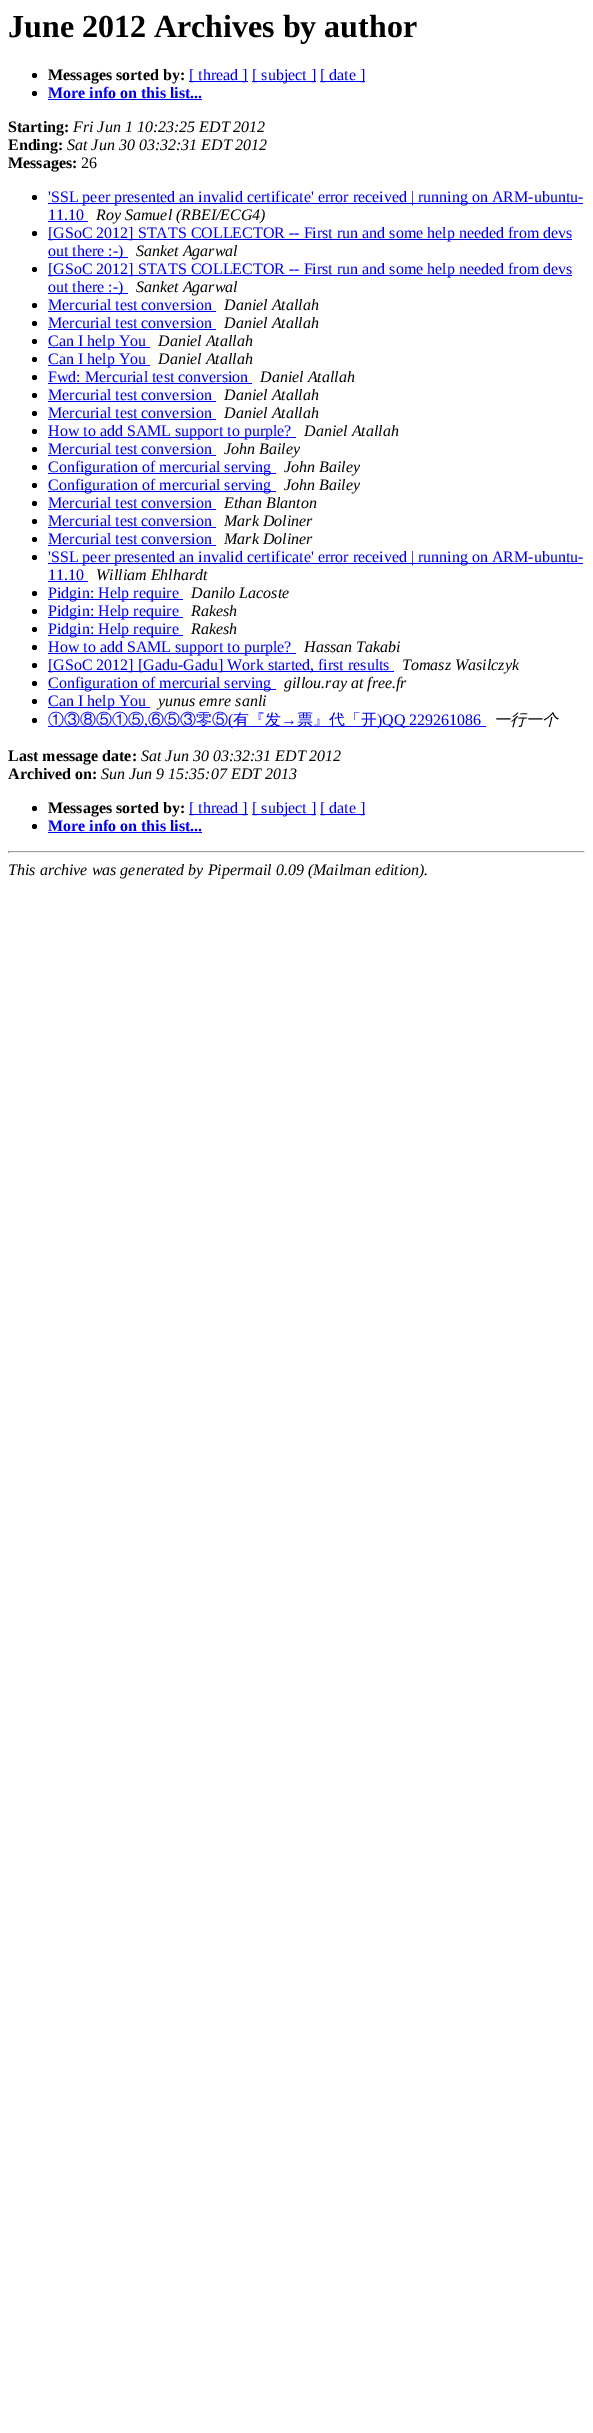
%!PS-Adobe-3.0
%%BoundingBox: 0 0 593 2433
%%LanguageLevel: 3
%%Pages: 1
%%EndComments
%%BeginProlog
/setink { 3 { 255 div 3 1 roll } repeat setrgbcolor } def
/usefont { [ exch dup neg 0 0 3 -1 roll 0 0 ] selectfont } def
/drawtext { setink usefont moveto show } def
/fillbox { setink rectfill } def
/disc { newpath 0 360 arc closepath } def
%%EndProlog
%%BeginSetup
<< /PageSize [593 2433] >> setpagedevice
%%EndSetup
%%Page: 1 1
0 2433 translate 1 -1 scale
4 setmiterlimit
0 0 593 2433 255 255 255 fillbox
(June 2012 Archives by author) 8 37 /LiberationSerif-Bold 32 0 0 0 drawtext
34.5 75.5 2.5 disc fill
(Messages sorted by:) 48 80 /LiberationSerif-Bold 16 0 0 0 drawtext
189 81 59 1 0 0 238 fillbox
([ thread ]) 189 80 /LiberationSerif-Regular 16 0 0 238 drawtext
252 81 64 1 0 0 238 fillbox
([ subject ]) 252 80 /LiberationSerif-Regular 16 0 0 238 drawtext
320 81 45 1 0 0 238 fillbox
([ date ]) 320 80 /LiberationSerif-Regular 16 0 0 238 drawtext
0 0 0 setink
34.5 93.5 2.5 disc fill
(More info on this list...) 48 98 /LiberationSerif-Bold 16 0 0 238 drawtext
48 99 154 1 0 0 238 fillbox
(Starting:) 8 132 /LiberationSerif-Bold 16 0 0 0 drawtext
(Fri Jun 1 10:23:25 EDT 2012) 73 132 /LiberationSerif-Italic 16 0 0 0 drawtext
(Ending:) 8 150 /LiberationSerif-Bold 16 0 0 0 drawtext
(Sat Jun 30 03:32:31 EDT 2012) 67 150 /LiberationSerif-Italic 16 0 0 0 drawtext
(Messages:) 8 168 /LiberationSerif-Bold 16 0 0 0 drawtext
(26) 81 168 /LiberationSerif-Regular 16 0 0 0 drawtext
34.5 197.5 2.5 disc fill
48 203 535 1 0 0 238 fillbox
('SSL peer presented an invalid certificate' error received | running on ARM-ubuntu-) 48 202 /LiberationSerif-Regular 16 0 0 238 drawtext
(11.10) 48 220 /LiberationSerif-Regular 16 0 0 238 drawtext
48 221 40 1 0 0 238 fillbox
(Roy Samuel \(RBEI/ECG4\)) 96 220 /LiberationSerif-Italic 16 0 0 0 drawtext
34.5 233.5 2.5 disc fill
48 239 524 1 0 0 238 fillbox
([GSoC 2012] STATS COLLECTOR -- First run and some help needed from devs) 48 238 /LiberationSerif-Regular 16 0 0 238 drawtext
48 257 80 1 0 0 238 fillbox
(out there :-\)) 48 256 /LiberationSerif-Regular 16 0 0 238 drawtext
(Sanket Agarwal) 136 256 /LiberationSerif-Italic 16 0 0 0 drawtext
34.5 269.5 2.5 disc fill
48 275 524 1 0 0 238 fillbox
([GSoC 2012] STATS COLLECTOR -- First run and some help needed from devs) 48 274 /LiberationSerif-Regular 16 0 0 238 drawtext
48 293 80 1 0 0 238 fillbox
(out there :-\)) 48 292 /LiberationSerif-Regular 16 0 0 238 drawtext
(Sanket Agarwal) 136 292 /LiberationSerif-Italic 16 0 0 0 drawtext
34.5 305.5 2.5 disc fill
(Mercurial test conversion) 48 310 /LiberationSerif-Regular 16 0 0 238 drawtext
48 311 168 1 0 0 238 fillbox
(Daniel Atallah) 224 310 /LiberationSerif-Italic 16 0 0 0 drawtext
34.5 323.5 2.5 disc fill
(Mercurial test conversion) 48 328 /LiberationSerif-Regular 16 0 0 238 drawtext
48 329 168 1 0 0 238 fillbox
(Daniel Atallah) 224 328 /LiberationSerif-Italic 16 0 0 0 drawtext
34.5 341.5 2.5 disc fill
48 347 102 1 0 0 238 fillbox
(Can I help You) 48 346 /LiberationSerif-Regular 16 0 0 238 drawtext
(Daniel Atallah) 158 346 /LiberationSerif-Italic 16 0 0 0 drawtext
34.5 359.5 2.5 disc fill
48 365 102 1 0 0 238 fillbox
(Can I help You) 48 364 /LiberationSerif-Regular 16 0 0 238 drawtext
(Daniel Atallah) 158 364 /LiberationSerif-Italic 16 0 0 0 drawtext
34.5 377.5 2.5 disc fill
(Fwd: Mercurial test conversion) 48 382 /LiberationSerif-Regular 16 0 0 238 drawtext
48 383 204 1 0 0 238 fillbox
(Daniel Atallah) 260 382 /LiberationSerif-Italic 16 0 0 0 drawtext
34.5 395.5 2.5 disc fill
(Mercurial test conversion) 48 400 /LiberationSerif-Regular 16 0 0 238 drawtext
48 401 168 1 0 0 238 fillbox
(Daniel Atallah) 224 400 /LiberationSerif-Italic 16 0 0 0 drawtext
34.5 413.5 2.5 disc fill
(Mercurial test conversion) 48 418 /LiberationSerif-Regular 16 0 0 238 drawtext
48 419 168 1 0 0 238 fillbox
(Daniel Atallah) 224 418 /LiberationSerif-Italic 16 0 0 0 drawtext
34.5 431.5 2.5 disc fill
48 437 248 1 0 0 238 fillbox
(How to add SAML support to purple?) 48 436 /LiberationSerif-Regular 16 0 0 238 drawtext
(Daniel Atallah) 304 436 /LiberationSerif-Italic 16 0 0 0 drawtext
34.5 449.5 2.5 disc fill
(Mercurial test conversion) 48 454 /LiberationSerif-Regular 16 0 0 238 drawtext
48 455 168 1 0 0 238 fillbox
(John Bailey) 224 454 /LiberationSerif-Italic 16 0 0 0 drawtext
34.5 467.5 2.5 disc fill
48 473 228 1 0 0 238 fillbox
(Configuration of mercurial serving) 48 472 /LiberationSerif-Regular 16 0 0 238 drawtext
(John Bailey) 284 472 /LiberationSerif-Italic 16 0 0 0 drawtext
34.5 485.5 2.5 disc fill
48 491 228 1 0 0 238 fillbox
(Configuration of mercurial serving) 48 490 /LiberationSerif-Regular 16 0 0 238 drawtext
(John Bailey) 284 490 /LiberationSerif-Italic 16 0 0 0 drawtext
34.5 503.5 2.5 disc fill
(Mercurial test conversion) 48 508 /LiberationSerif-Regular 16 0 0 238 drawtext
48 509 168 1 0 0 238 fillbox
(Ethan Blanton) 224 508 /LiberationSerif-Italic 16 0 0 0 drawtext
34.5 521.5 2.5 disc fill
(Mercurial test conversion) 48 526 /LiberationSerif-Regular 16 0 0 238 drawtext
48 527 168 1 0 0 238 fillbox
(Mark Doliner) 224 526 /LiberationSerif-Italic 16 0 0 0 drawtext
34.5 539.5 2.5 disc fill
(Mercurial test conversion) 48 544 /LiberationSerif-Regular 16 0 0 238 drawtext
48 545 168 1 0 0 238 fillbox
(Mark Doliner) 224 544 /LiberationSerif-Italic 16 0 0 0 drawtext
34.5 557.5 2.5 disc fill
48 563 535 1 0 0 238 fillbox
('SSL peer presented an invalid certificate' error received | running on ARM-ubuntu-) 48 562 /LiberationSerif-Regular 16 0 0 238 drawtext
(11.10) 48 580 /LiberationSerif-Regular 16 0 0 238 drawtext
48 581 40 1 0 0 238 fillbox
(William Ehlhardt) 96 580 /LiberationSerif-Italic 16 0 0 0 drawtext
34.5 593.5 2.5 disc fill
48 599 135 1 0 0 238 fillbox
(Pidgin: Help require) 48 598 /LiberationSerif-Regular 16 0 0 238 drawtext
(Danilo Lacoste) 191 598 /LiberationSerif-Italic 16 0 0 0 drawtext
34.5 611.5 2.5 disc fill
48 617 135 1 0 0 238 fillbox
(Pidgin: Help require) 48 616 /LiberationSerif-Regular 16 0 0 238 drawtext
(Rakesh) 191 616 /LiberationSerif-Italic 16 0 0 0 drawtext
34.5 629.5 2.5 disc fill
48 635 135 1 0 0 238 fillbox
(Pidgin: Help require) 48 634 /LiberationSerif-Regular 16 0 0 238 drawtext
(Rakesh) 191 634 /LiberationSerif-Italic 16 0 0 0 drawtext
34.5 647.5 2.5 disc fill
48 653 248 1 0 0 238 fillbox
(How to add SAML support to purple?) 48 652 /LiberationSerif-Regular 16 0 0 238 drawtext
(Hassan Takabi) 304 652 /LiberationSerif-Italic 16 0 0 0 drawtext
34.5 665.5 2.5 disc fill
48 671 346 1 0 0 238 fillbox
([GSoC 2012] [Gadu-Gadu] Work started, first results) 48 670 /LiberationSerif-Regular 16 0 0 238 drawtext
(Tomasz Wasilczyk) 402 670 /LiberationSerif-Italic 16 0 0 0 drawtext
34.5 683.5 2.5 disc fill
48 689 228 1 0 0 238 fillbox
(Configuration of mercurial serving) 48 688 /LiberationSerif-Regular 16 0 0 238 drawtext
(gillou.ray at free.fr) 284 688 /LiberationSerif-Italic 16 0 0 0 drawtext
34.5 701.5 2.5 disc fill
48 707 102 1 0 0 238 fillbox
(Can I help You) 48 706 /LiberationSerif-Regular 16 0 0 238 drawtext
(yunus emre sanli) 158 706 /LiberationSerif-Italic 16 0 0 0 drawtext
34.5 720.5 2.5 disc fill
48 726 438 1 0 0 238 fillbox
(①③⑧⑤①⑤) 48 725 /WenQuanYiZenHei-Medium 16 0 0 238 drawtext
(⑥⑤③零⑤) 148 725 /WenQuanYiZenHei-Medium 16 0 0 238 drawtext
(\() 228 725 /LiberationSerif-Regular 16 0 0 238 drawtext
(有『发) 233 725 /WenQuanYiZenHei-Medium 16 0 0 238 drawtext
(→) 281 725 /LiberationSerif-Regular 16 0 0 238 drawtext
(票』代「开) 297 725 /WenQuanYiZenHei-Medium 16 0 0 238 drawtext
(\)QQ 229261086) 377 725 /LiberationSerif-Regular 16 0 0 238 drawtext
(一行一个) 494 725 /WenQuanYiZenHei-MediumItalic 16 0 0 0 drawtext
(,) 144 725 /LiberationSerif-Regular 16 0 0 238 drawtext
(Last message date:) 8 761 /LiberationSerif-Bold 16 0 0 0 drawtext
(Sat Jun 30 03:32:31 EDT 2012) 141 761 /LiberationSerif-Italic 16 0 0 0 drawtext
(Archived on:) 8 779 /LiberationSerif-Bold 16 0 0 0 drawtext
(Sun Jun 9 15:35:07 EDT 2013) 101 779 /LiberationSerif-Italic 16 0 0 0 drawtext
34.5 808.5 2.5 disc fill
(Messages sorted by:) 48 813 /LiberationSerif-Bold 16 0 0 0 drawtext
189 814 59 1 0 0 238 fillbox
([ thread ]) 189 813 /LiberationSerif-Regular 16 0 0 238 drawtext
252 814 64 1 0 0 238 fillbox
([ subject ]) 252 813 /LiberationSerif-Regular 16 0 0 238 drawtext
320 814 45 1 0 0 238 fillbox
([ date ]) 320 813 /LiberationSerif-Regular 16 0 0 238 drawtext
0 0 0 setink
34.5 826.5 2.5 disc fill
(More info on this list...) 48 831 /LiberationSerif-Bold 16 0 0 238 drawtext
48 832 154 1 0 0 238 fillbox
8 851 577 1 159 159 159 fillbox
584 851 1 2 238 238 238 fillbox
8 852 577 1 238 238 238 fillbox
8 851 1 2 159 159 159 fillbox
(This archive was generated by Pipermail 0.09 \(Mailman edition\).) 8 875 /LiberationSerif-Italic 16 0 0 0 drawtext
showpage
%%EOF
